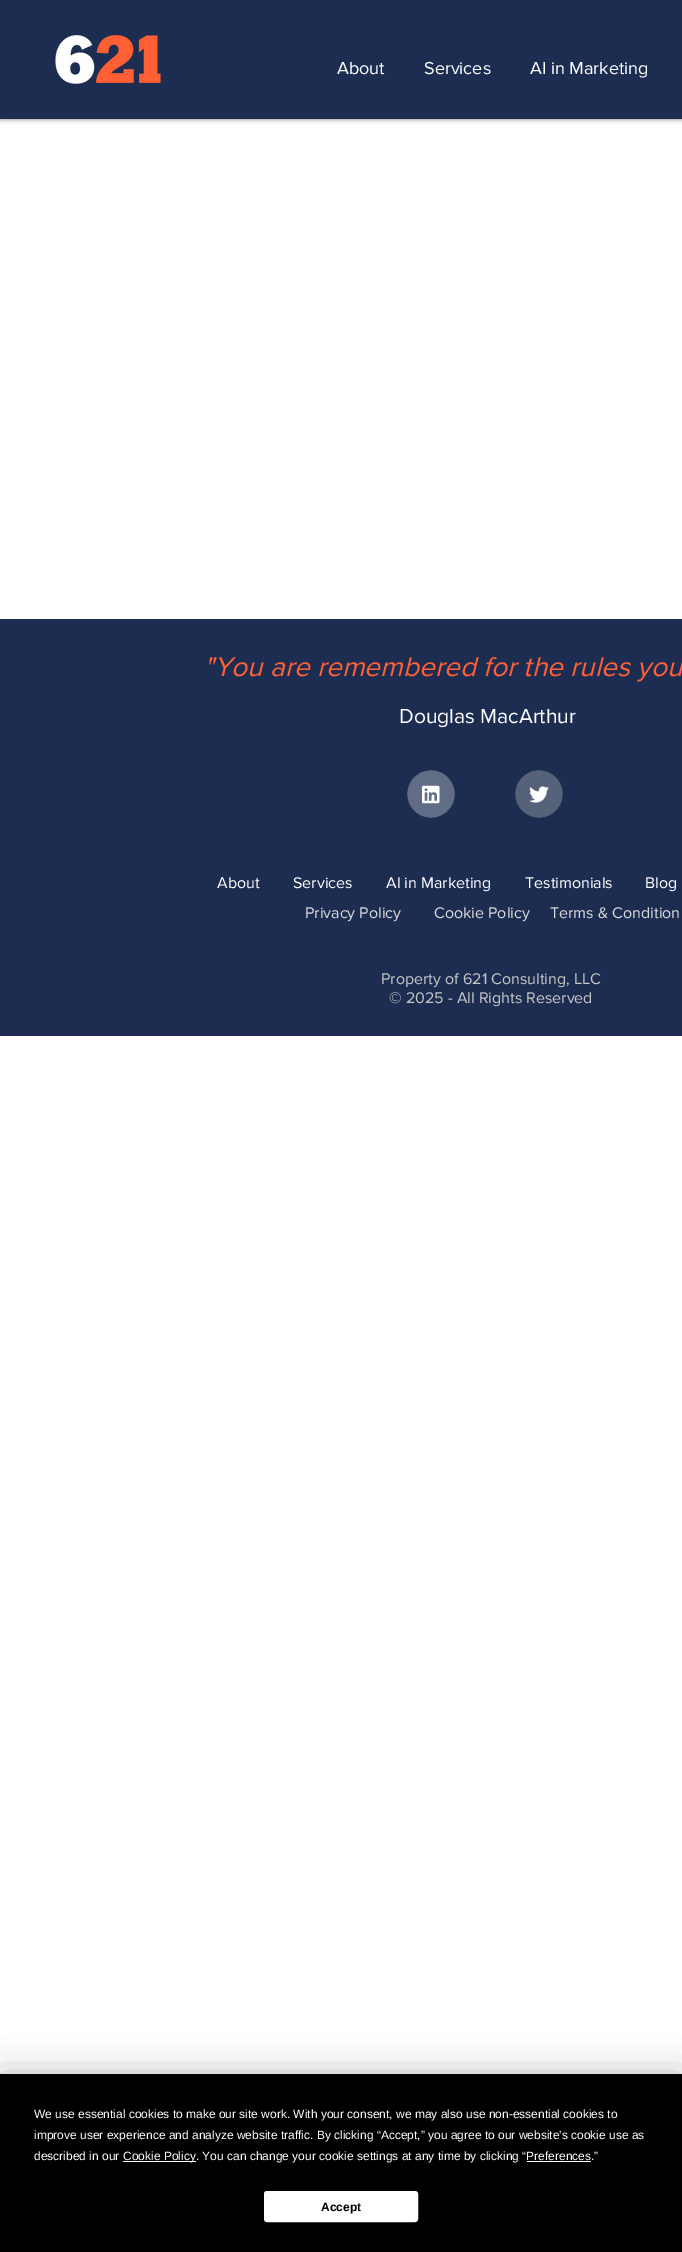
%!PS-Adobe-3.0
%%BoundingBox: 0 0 682 2252
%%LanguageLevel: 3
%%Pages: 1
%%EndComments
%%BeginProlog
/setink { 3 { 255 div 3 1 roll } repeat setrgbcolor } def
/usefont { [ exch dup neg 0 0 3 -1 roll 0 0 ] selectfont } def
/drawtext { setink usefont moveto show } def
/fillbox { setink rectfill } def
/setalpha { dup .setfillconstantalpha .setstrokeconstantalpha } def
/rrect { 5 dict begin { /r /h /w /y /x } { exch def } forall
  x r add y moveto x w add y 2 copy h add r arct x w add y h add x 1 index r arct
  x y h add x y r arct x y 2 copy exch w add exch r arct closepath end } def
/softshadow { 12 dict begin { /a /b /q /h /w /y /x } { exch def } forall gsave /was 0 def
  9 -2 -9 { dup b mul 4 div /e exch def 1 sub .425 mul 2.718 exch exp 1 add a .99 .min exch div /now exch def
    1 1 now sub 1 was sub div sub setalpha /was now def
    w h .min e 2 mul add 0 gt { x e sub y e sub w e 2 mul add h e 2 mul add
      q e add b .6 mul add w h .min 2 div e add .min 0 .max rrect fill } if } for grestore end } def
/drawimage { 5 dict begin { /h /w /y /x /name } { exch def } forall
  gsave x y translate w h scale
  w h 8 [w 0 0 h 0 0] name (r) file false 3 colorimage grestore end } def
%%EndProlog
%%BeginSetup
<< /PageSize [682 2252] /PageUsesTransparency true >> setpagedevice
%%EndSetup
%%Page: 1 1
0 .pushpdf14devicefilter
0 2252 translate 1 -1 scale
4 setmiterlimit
0 0 682 2252 255 255 255 fillbox
0 0 0 setink
0 0 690 119 0 2.5 0.5 softshadow
0 0 682 119 28 45 81 fillbox
(assets/img1.rgb) 55 35 106 49 drawimage
(About) 337 74 /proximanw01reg-Regular 18 255 255 255 drawtext
(Services) 424 74 /proximanw01reg-Regular 18 255 255 255 drawtext
(AI in Marketing) 530 74 /proximanw01reg-Regular 18 255 255 255 drawtext
0 619 682 417 28 45 81 fillbox
("You are remembered for the rules you) 204 676 /proximanw01reg-Italic 28 255 96 54 drawtext
(Douglas MacArthur) 399 723 /proximanw01reg-Regular 21 255 255 255 drawtext
(assets/img2.rgb) 407 770 48 48 drawimage
(assets/img3.rgb) 515 770 48 48 drawimage
(About) 217 888 /proximanw01reg-Regular 16 255 255 255 drawtext
(Services) 293 888 /proximanw01reg-Regular 16 255 255 255 drawtext
(AI in Marketing) 386 888 /proximanw01reg-Regular 16 255 255 255 drawtext
(Testimonials) 525 888 /proximanw01reg-Regular 16 255 255 255 drawtext
(Blog) 645 888 /proximanw01reg-Regular 16 255 255 255 drawtext
(Privacy Policy) 305 918 /proximanw01reg-Regular 16 219 219 219 drawtext
(Cookie Policy) 434 918 /proximanw01reg-Regular 16 219 219 219 drawtext
(Terms & Condition) 550 918 /proximanw01reg-Regular 16 219 219 219 drawtext
(Property of 621 Consulting, LLC) 381 984 /proximanw01reg-Regular 16 199 199 199 drawtext
(© 2025 - All Rights Reserved) 389 1003 /proximanw01reg-Regular 16 199 199 199 drawtext
0 0 0 setink
0 2074 682 178 0 17.5 0.25 softshadow
0 2074 682 178 0 0 0 fillbox
(We use essential cookies to make our site work. With your consent, we may also use non-essential cookies to) 34 2118 /LiberationSans-Regular 12 255 255 255 drawtext
(improve user experience and analyze website traffic. By clicking “Accept,” you agree to our website's cookie use as) 34 2139 /LiberationSans-Regular 12 255 255 255 drawtext
(described in our) 34 2160 /LiberationSans-Regular 12 255 255 255 drawtext
123 2161 73 1 255 255 255 fillbox
(Cookie Policy. You can change your cookie settings at any time by clicking “Preferences.”) 123 2160 /LiberationSans-Regular 12 255 255 255 drawtext
527 2161 64 1 255 255 255 fillbox
264.5 2191.5 153 30 2.5 rrect gsave fill grestore
stroke
(Accept) 321 2211 /LiberationSans-Bold 12 0 0 0 drawtext
.poppdf14devicefilter showpage
%%EOF
